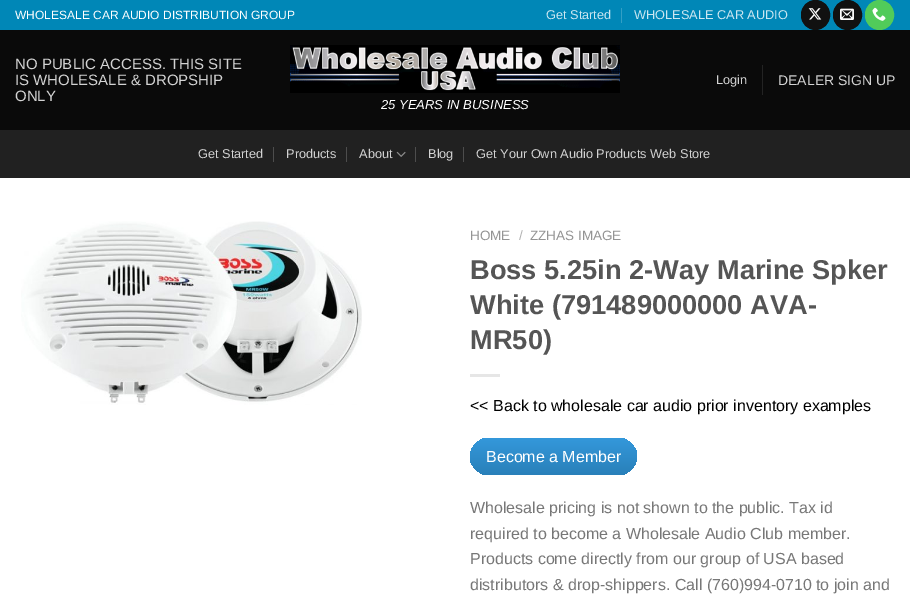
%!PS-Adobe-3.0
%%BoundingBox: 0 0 910 597
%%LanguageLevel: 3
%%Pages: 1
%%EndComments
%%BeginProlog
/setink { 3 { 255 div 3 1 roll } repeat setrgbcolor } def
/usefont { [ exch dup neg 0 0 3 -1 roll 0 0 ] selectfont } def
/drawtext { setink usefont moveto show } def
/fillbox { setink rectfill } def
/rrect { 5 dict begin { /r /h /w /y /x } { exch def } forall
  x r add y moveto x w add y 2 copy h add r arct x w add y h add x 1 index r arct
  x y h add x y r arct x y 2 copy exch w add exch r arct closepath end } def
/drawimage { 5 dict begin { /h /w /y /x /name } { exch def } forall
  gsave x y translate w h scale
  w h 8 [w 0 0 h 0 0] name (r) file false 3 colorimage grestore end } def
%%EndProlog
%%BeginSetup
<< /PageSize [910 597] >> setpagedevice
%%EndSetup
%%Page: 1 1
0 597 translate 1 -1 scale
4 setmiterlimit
0 0 910 597 255 255 255 fillbox
0 0 910 30 0 135 183 fillbox
(WHOLESALE CAR AUDIO DISTRIBUTION GROUP) 15 19 /LiberationSans-Regular 12 255 255 255 drawtext
(Get Started) 546 19 /LiberationSans-Regular 12.75 204 231 241 drawtext
621 8 1 15 51 159 197 fillbox
(WHOLESALE CAR AUDIO) 634 19 /LiberationSans-Regular 12.75 204 231 241 drawtext
17 17 17 setink
801.5 0.5 28 29 14 rrect gsave fill grestore
stroke
(assets/img1.rgb) 808 8 14 12 drawimage
833.5 0.5 28 29 14 rrect gsave fill grestore
stroke
(assets/img2.rgb) 840 8 14 12 drawimage
81 203 90 setink
865.5 0.5 28 29 14 rrect gsave fill grestore
stroke
(assets/img3.rgb) 872 7 14 14 drawimage
0 30 910 100 10 10 10 fillbox
(NO PUBLIC ACCESS. THIS SITE) 15 69 /LiberationSans-Regular 15 211 211 211 drawtext
(IS WHOLESALE & DROPSHIP) 15 85 /LiberationSans-Regular 15 211 211 211 drawtext
(ONLY) 15 101 /LiberationSans-Regular 15 211 211 211 drawtext
(Login) 716 84 /LiberationSans-Regular 12.75 211 211 211 drawtext
762 65 1 30 35 35 35 fillbox
(DEALER SIGN UP) 778 85 /LiberationSans-Regular 14 211 211 211 drawtext
(assets/img4.rgb) 290 45 330 48 drawimage
(25 YEARS IN BUSINESS) 381 109 /LiberationSans-Italic 13 255 255 255 drawtext
0 130 910 48 33 33 33 fillbox
(Get Started) 198 158 /LiberationSans-Regular 12.75 211 211 211 drawtext
273 147 1 15 77 77 77 fillbox
(Products) 286 158 /LiberationSans-Regular 12.75 211 211 211 drawtext
346 147 1 15 77 77 77 fillbox
(About) 359 158 /LiberationSans-Regular 12.75 211 211 211 drawtext
(assets/img5.rgb) 396 151 10 6 drawimage
415 147 1 15 77 77 77 fillbox
(Blog) 428 158 /LiberationSans-Regular 12.75 211 211 211 drawtext
463 147 1 15 77 77 77 fillbox
(Get Your Own Audio Products Web Store) 476 158 /LiberationSans-Regular 12.75 211 211 211 drawtext
(assets/img6.rgb) 21 221 341 184 drawimage
(HOME) 470 240 /LiberationSans-Regular 13.5 148 148 148 drawtext
(/) 519 240 /LiberationSans-Regular 13.5 178 178 178 drawtext
(ZZHAS IMAGE) 530 240 /LiberationSans-Regular 13.5 148 148 148 drawtext
(Boss 5.25in 2-Way Marine Spker) 470 279 /LiberationSans-Bold 27.25 85 85 85 drawtext
(White \(791489000000 AVA-) 470 314 /LiberationSans-Bold 27.25 85 85 85 drawtext
(MR50\)) 470 349 /LiberationSans-Bold 27.25 85 85 85 drawtext
470 374 30 3 230 230 230 fillbox
(<< Back to wholesale car audio prior inventory examples) 470 411 /LiberationSans-Regular 16 0 0 0 drawtext
gsave 470 438 167 37 18.5 rrect clip newpath
<< /ShadingType 2 /ColorSpace /DeviceRGB /Coords [554 438 554 475] /Extend [true true] /Function << /FunctionType 2 /Domain [0 1] /C0 [0.204 0.596 0.859] /C1 [0.161 0.502 0.725] /N 1 >> >> shfill grestore
(Become a Member) 486 462 /LiberationSans-Regular 16 255 255 255 drawtext
(Wholesale pricing is not shown to the public. Tax id) 470 513 /LiberationSans-Regular 16 119 119 119 drawtext
(required to become a Wholesale Audio Club member.) 470 539 /LiberationSans-Regular 16 119 119 119 drawtext
(Products come directly from our group of USA based) 470 564 /LiberationSans-Regular 16 119 119 119 drawtext
(distributors & drop-shippers. Call \(760\)994-0710 to join and) 470 590 /LiberationSans-Regular 16 119 119 119 drawtext
showpage
%%EOF
